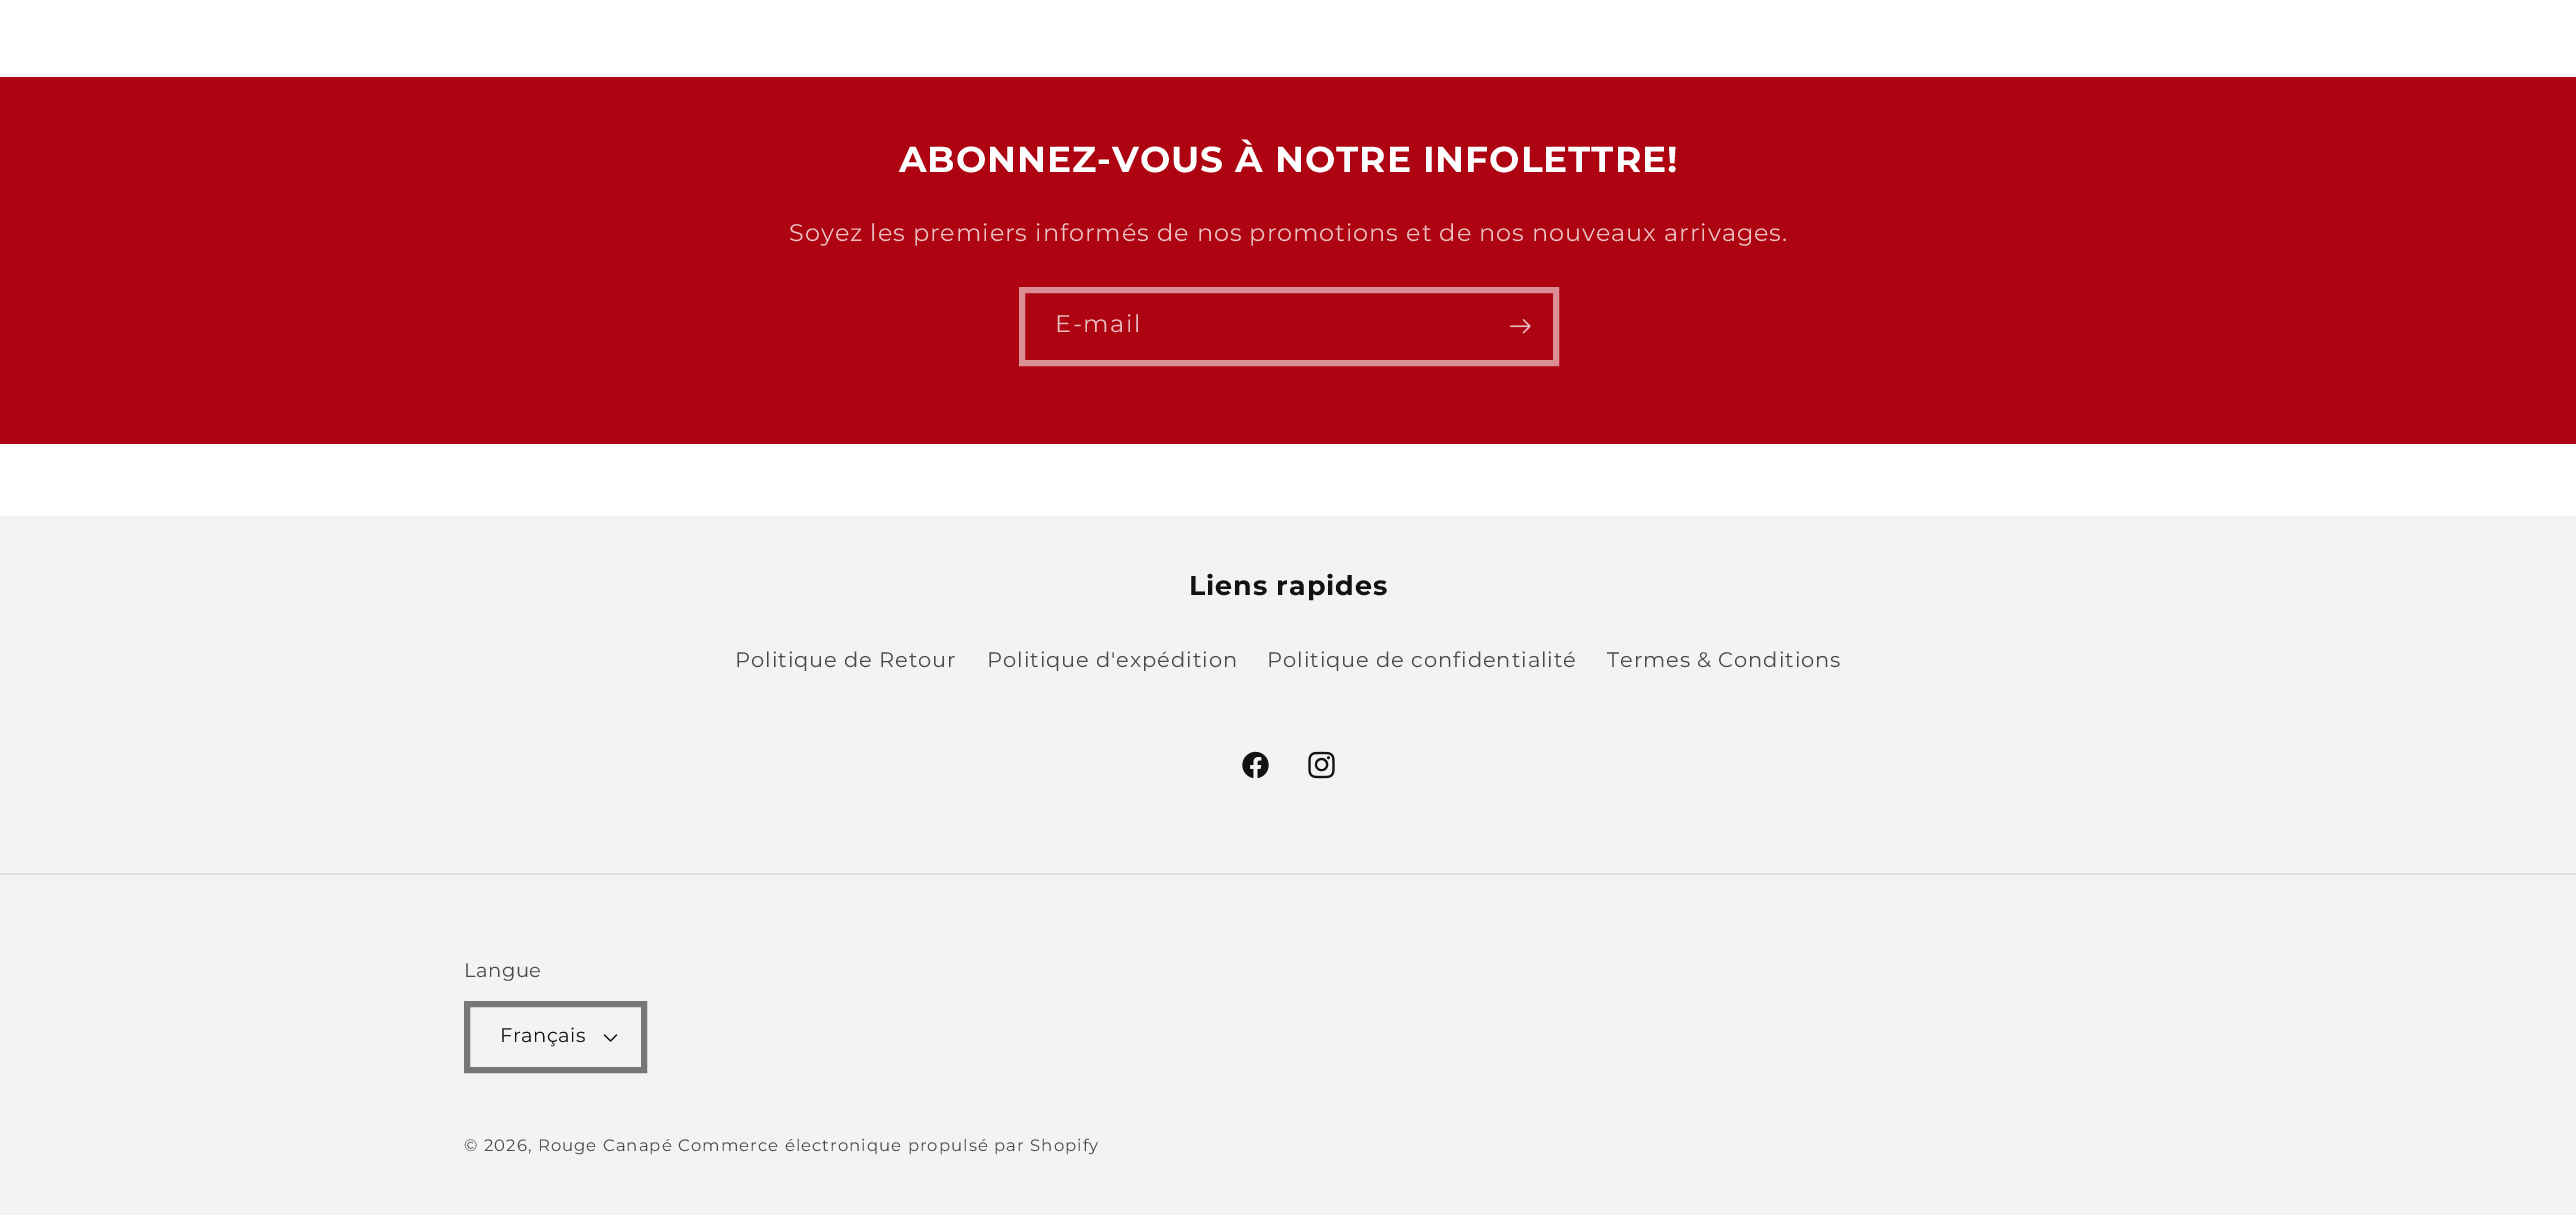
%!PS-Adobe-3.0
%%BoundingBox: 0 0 2576 1215
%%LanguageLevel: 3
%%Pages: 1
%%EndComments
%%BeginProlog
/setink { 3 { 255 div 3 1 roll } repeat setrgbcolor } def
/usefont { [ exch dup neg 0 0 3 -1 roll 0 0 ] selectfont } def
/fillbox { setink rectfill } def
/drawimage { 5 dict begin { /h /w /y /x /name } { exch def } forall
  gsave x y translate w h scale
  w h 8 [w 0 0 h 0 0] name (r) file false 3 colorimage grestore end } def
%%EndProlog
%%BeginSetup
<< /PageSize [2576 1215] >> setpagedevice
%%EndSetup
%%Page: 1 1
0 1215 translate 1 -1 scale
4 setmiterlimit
0 0 2576 1215 255 255 255 fillbox
0 77 2576 367 174 3 16 fillbox
/Montserrat-Bold 36 usefont
255 255 255 setink
899 172 moveto 0.9 0 (ABONNEZ-VOUS À NOTRE INFOLETTRE!) ashow
/Montserrat-Regular 24 usefont
235 192 195 setink
789 241 moveto 0.9 0 (Soyez les premiers informés de nos promotions et de nos nouveaux arrivages.) ashow
219 142 147 setink
6 setlinewidth
1022 290 534 73 rectstroke
235 192 195 setink
1055 332 moveto 1.5 0 (E-mail) ashow
(assets/img1.rgb) 1509 319 22 15 drawimage
0 516 2576 699 243 243 243 fillbox
/Montserrat-Bold 27 usefont
18 18 18 setink
1189 595 moveto 0.9 0 (Liens rapides) ashow
/Montserrat-Regular 21 usefont
74 74 74 setink
735 667 moveto 0.9 0 (Politique de Retour) ashow
987 667 moveto 0.9 0 (Politique d'expédition) ashow
1267 667 moveto 0.9 0 (Politique de confidentialité) ashow
1607 667 moveto 0.9 0 (Termes & Conditions) ashow
(assets/img2.rgb) 1242 751 27 28 drawimage
(assets/img3.rgb) 1308 751 27 28 drawimage
0 873 2576 2 225 225 225 fillbox
/Montserrat-Regular 19.5 usefont
74 74 74 setink
464 977 moveto 0.5 0 (Langue) ashow
(assets/img4.rgb) 603 1034 15 8 drawimage
119 119 119 setink
467 1004 177 66 rectstroke
18 18 18 setink
500 1042 moveto 0.5 0 (Français) ashow
/Montserrat-Regular 16.5 usefont
74 74 74 setink
464 1151 moveto 1.05 0 (© 2026, Rouge Canapé Commerce électronique propulsé par Shopify) ashow
showpage
%%EOF
